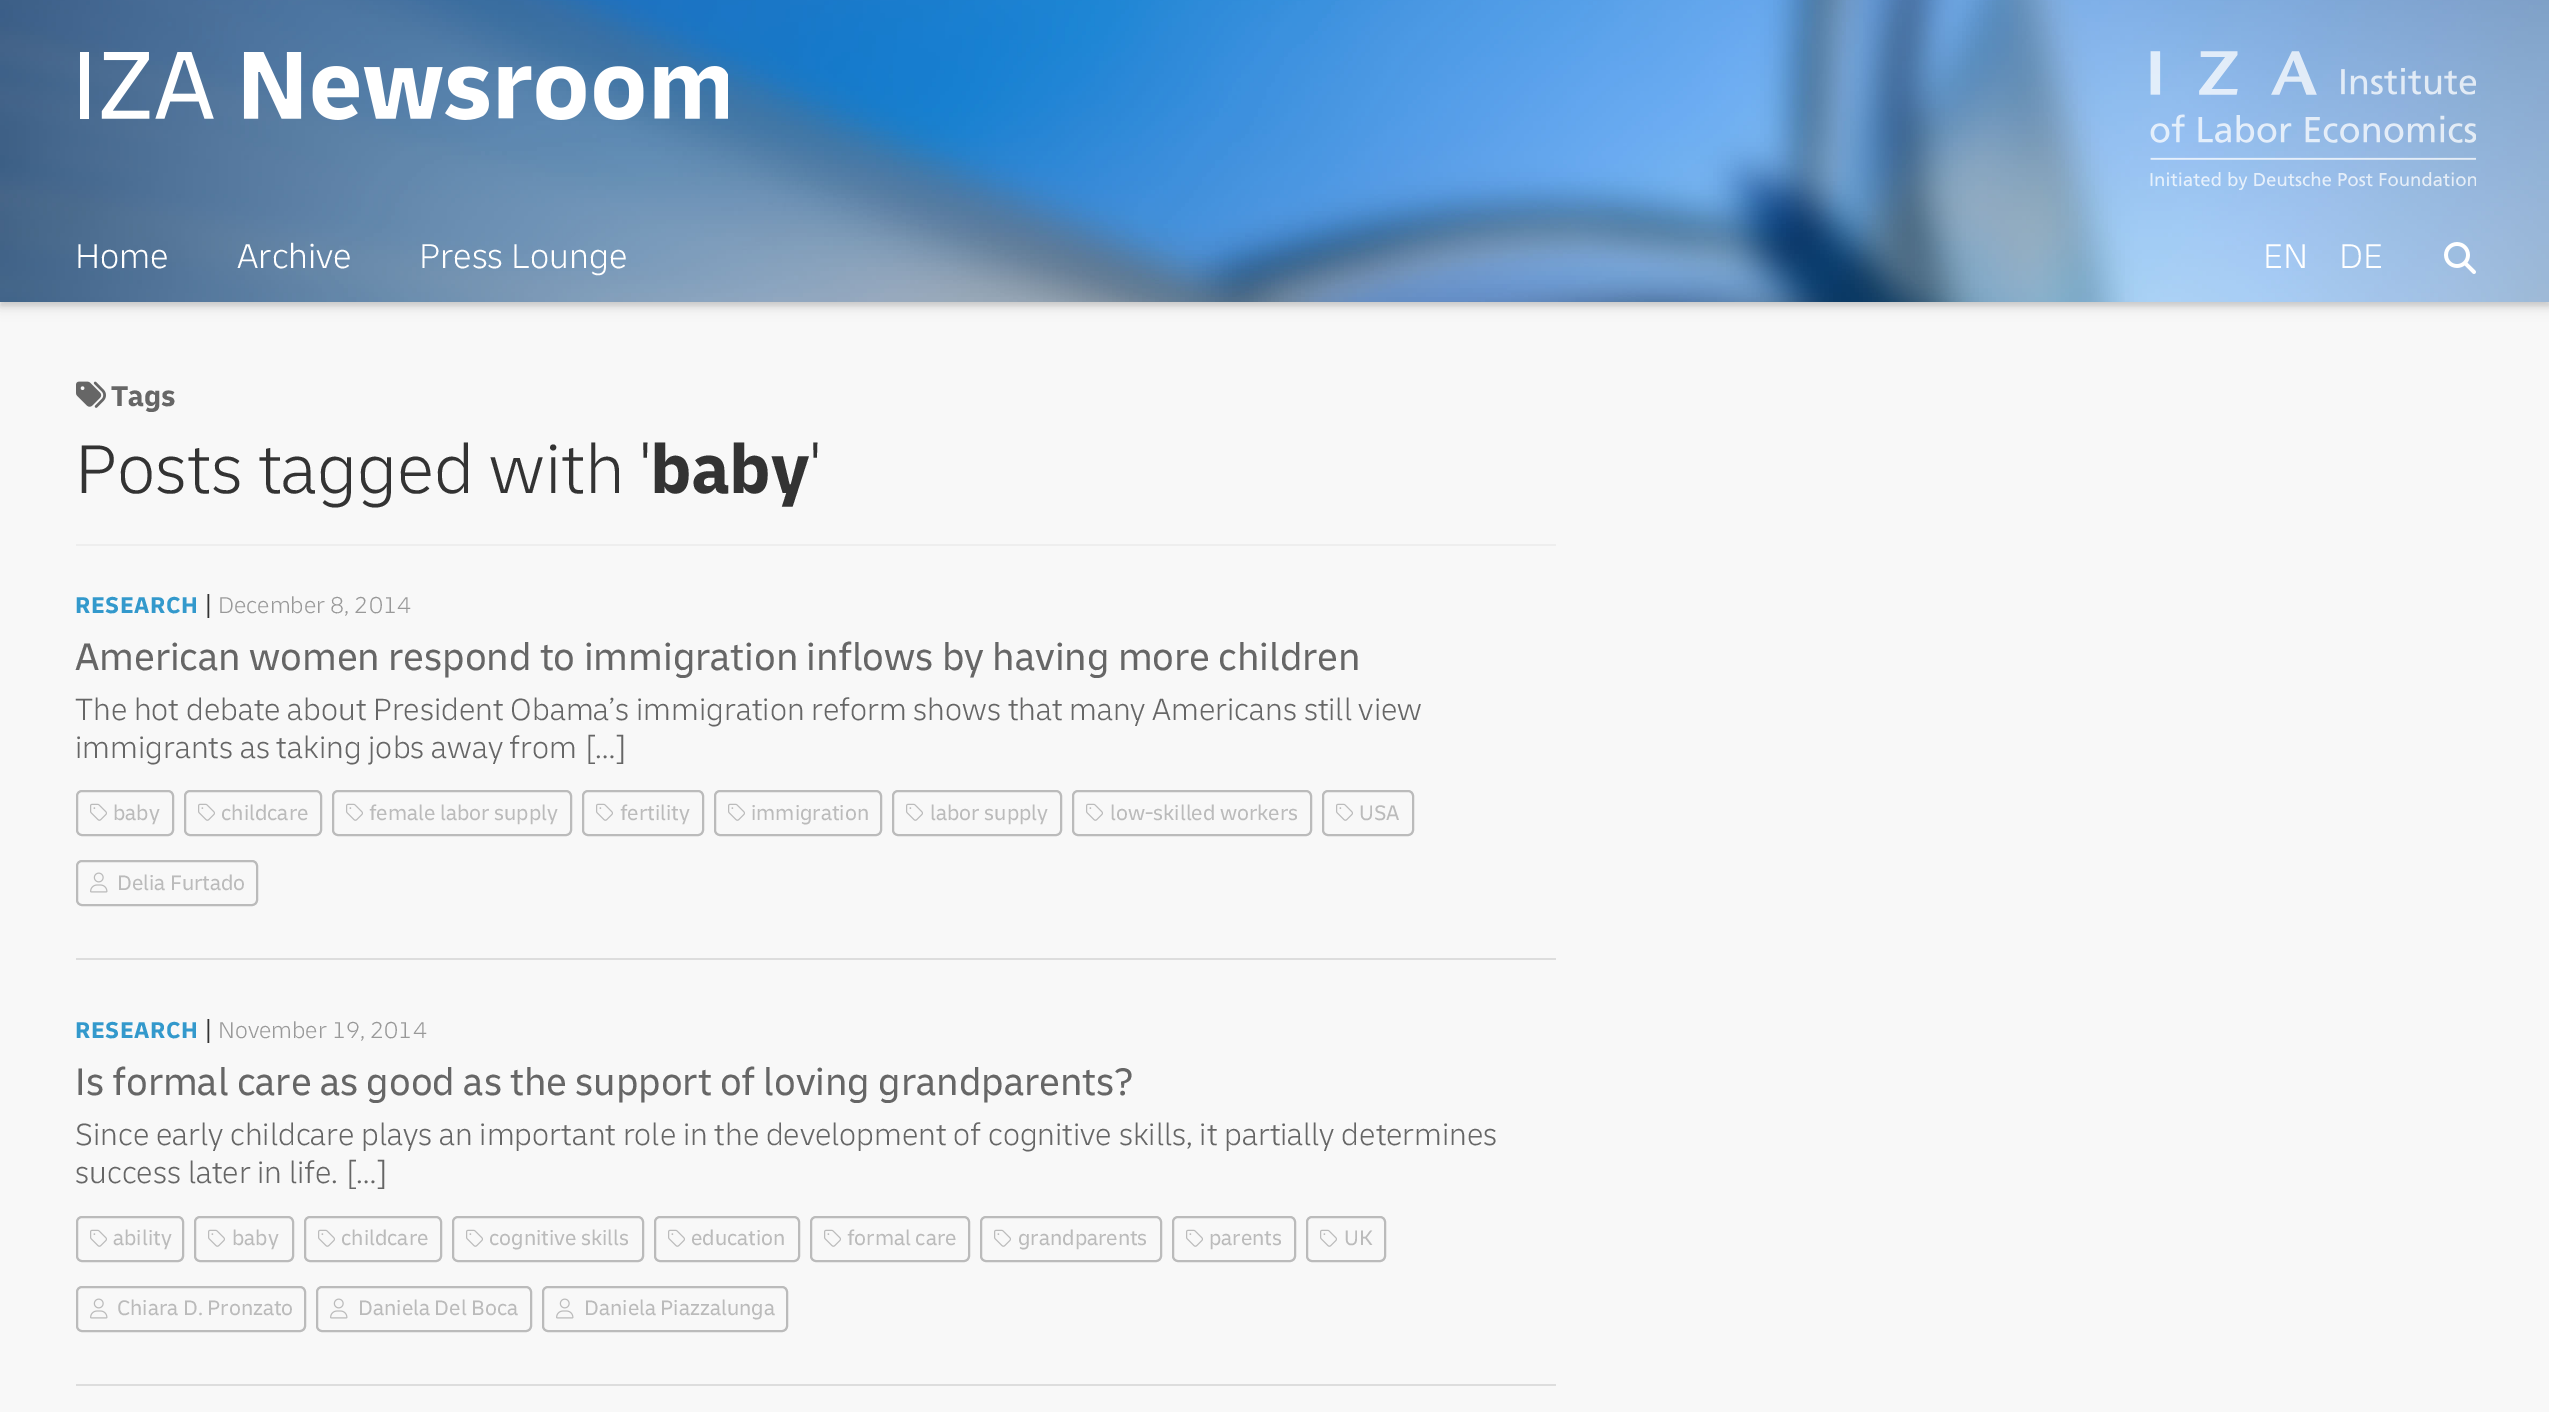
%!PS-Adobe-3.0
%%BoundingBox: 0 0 2549 1412
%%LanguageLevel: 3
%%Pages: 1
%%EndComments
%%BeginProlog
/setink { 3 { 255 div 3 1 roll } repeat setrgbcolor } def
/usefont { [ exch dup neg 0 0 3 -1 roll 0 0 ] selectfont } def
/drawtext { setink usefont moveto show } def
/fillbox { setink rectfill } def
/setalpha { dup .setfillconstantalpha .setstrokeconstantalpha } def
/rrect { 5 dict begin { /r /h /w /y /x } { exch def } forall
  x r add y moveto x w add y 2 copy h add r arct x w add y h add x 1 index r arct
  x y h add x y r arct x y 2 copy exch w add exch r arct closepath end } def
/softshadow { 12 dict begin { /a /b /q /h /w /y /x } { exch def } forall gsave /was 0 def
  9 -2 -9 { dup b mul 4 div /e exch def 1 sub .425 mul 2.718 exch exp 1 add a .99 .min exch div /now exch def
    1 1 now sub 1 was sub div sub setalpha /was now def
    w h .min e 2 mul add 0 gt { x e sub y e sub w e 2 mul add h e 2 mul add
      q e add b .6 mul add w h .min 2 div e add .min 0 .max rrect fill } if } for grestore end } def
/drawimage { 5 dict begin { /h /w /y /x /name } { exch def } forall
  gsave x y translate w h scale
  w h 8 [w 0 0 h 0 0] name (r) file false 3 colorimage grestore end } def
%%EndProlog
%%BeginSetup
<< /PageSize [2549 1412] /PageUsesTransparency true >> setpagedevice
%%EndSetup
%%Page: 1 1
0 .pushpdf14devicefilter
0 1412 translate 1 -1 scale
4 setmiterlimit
0 0 2549 1412 248 248 248 fillbox
0 0 0 setink
0 4 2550 302 0 2 0.09 softshadow
0 6 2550 302 0 6 0.1 softshadow
(assets/img1.rgb) 0 0 2549 302 drawimage
(assets/img2.rgb) 80 52 648 68 drawimage
(assets/img3.rgb) 2150 51 326 139 drawimage
(Home) 75 268 /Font-Light 36 255 255 255 drawtext
(Archive) 237 268 /Font-Light 36 255 255 255 drawtext
(Press Lounge) 419 268 /Font-Light 36 255 255 255 drawtext
(EN) 2263 268 /Font-Light 36 255 255 255 drawtext
(DE) 2339 268 /Font-Light 36 255 255 255 drawtext
(assets/img4.rgb) 2444 242 32 32 drawimage
(assets/img5.rgb) 76 381 30 27 drawimage
(Tags) 111 406 /Font-Bold 30 102 102 102 drawtext
(Posts tagged with ') 75 493 /Font-Light 72 51 51 51 drawtext
(baby) 650 493 /Font-Bold 72 51 51 51 drawtext
(') 810 493 /Font-Light 72 51 51 51 drawtext
76 544 1480 2 238 238 238 fillbox
76 958 1480 2 221 221 221 fillbox
/Font-Bold 24 usefont
51 153 204 setink
75 613 moveto 0.5 0 (RESEARCH) ashow
/Font-Light 26 usefont
51 51 51 setink
205 613 moveto 0.5 0 (|) ashow
(December 8, 2014) 218 613 /Font-Light 24 153 153 153 drawtext
(American women respond to immigration inflows by having more children) 75 670 /Font-Regular 40 102 102 102 drawtext
(The hot debate about President Obama’s immigration reform shows that many Americans still view) 75 720 /Font-Light 32 102 102 102 drawtext
(immigrants as taking jobs away from […]) 75 758 /Font-Light 32 102 102 102 drawtext
187 187 187 setink
2 setlinewidth
77 791 96 44 5 rrect stroke
(assets/img6.rgb) 90 803 17 18 drawimage
(baby) 113 820 /Font-Regular 22 187 187 187 drawtext
185 791 136 44 5 rrect stroke
(assets/img6.rgb) 198 803 17 18 drawimage
(childcare) 221 820 /Font-Regular 22 187 187 187 drawtext
333 791 238 44 5 rrect stroke
(assets/img6.rgb) 346 803 17 18 drawimage
(female labor supply) 369 820 /Font-Regular 22 187 187 187 drawtext
583 791 120 44 5 rrect stroke
(assets/img6.rgb) 596 803 17 18 drawimage
(fertility) 620 820 /Font-Regular 22 187 187 187 drawtext
715 791 166 44 5 rrect stroke
(assets/img6.rgb) 728 803 17 18 drawimage
(immigration) 751 820 /Font-Regular 22 187 187 187 drawtext
893 791 168 44 5 rrect stroke
(assets/img6.rgb) 906 803 17 18 drawimage
(labor supply) 930 820 /Font-Regular 22 187 187 187 drawtext
1073 791 238 44 5 rrect stroke
(assets/img6.rgb) 1086 803 17 18 drawimage
(low-skilled workers) 1110 820 /Font-Regular 22 187 187 187 drawtext
1323 791 90 44 5 rrect stroke
(assets/img6.rgb) 1336 803 17 18 drawimage
(USA) 1359 820 /Font-Regular 22 187 187 187 drawtext
77 861 180 44 5 rrect stroke
(assets/img7.rgb) 90 872 18 21 drawimage
(Delia Furtado) 117 890 /Font-Regular 22 187 187 187 drawtext
76 1384 1480 2 221 221 221 fillbox
/Font-Bold 24 usefont
51 153 204 setink
75 1038 moveto 0.5 0 (RESEARCH) ashow
/Font-Light 26 usefont
51 51 51 setink
205 1038 moveto 0.5 0 (|) ashow
(November 19, 2014) 218 1038 /Font-Light 24 153 153 153 drawtext
(Is formal care as good as the support of loving grandparents?) 75 1095 /Font-Regular 40 102 102 102 drawtext
(Since early childcare plays an important role in the development of cognitive skills, it partially determines) 75 1145 /Font-Light 32 102 102 102 drawtext
(success later in life. […]) 75 1183 /Font-Light 32 102 102 102 drawtext
187 187 187 setink
77 1217 106 44 5 rrect stroke
(assets/img6.rgb) 90 1229 17 18 drawimage
(ability) 113 1245 /Font-Regular 22 187 187 187 drawtext
195 1217 98 44 5 rrect stroke
(assets/img6.rgb) 208 1229 17 18 drawimage
(baby) 232 1245 /Font-Regular 22 187 187 187 drawtext
305 1217 136 44 5 rrect stroke
(assets/img6.rgb) 318 1229 17 18 drawimage
(childcare) 341 1245 /Font-Regular 22 187 187 187 drawtext
453 1217 190 44 5 rrect stroke
(assets/img6.rgb) 466 1229 17 18 drawimage
(cognitive skills) 489 1245 /Font-Regular 22 187 187 187 drawtext
655 1217 144 44 5 rrect stroke
(assets/img6.rgb) 668 1229 17 18 drawimage
(education) 691 1245 /Font-Regular 22 187 187 187 drawtext
811 1217 158 44 5 rrect stroke
(assets/img6.rgb) 824 1229 17 18 drawimage
(formal care) 847 1245 /Font-Regular 22 187 187 187 drawtext
981 1217 180 44 5 rrect stroke
(assets/img6.rgb) 994 1229 17 18 drawimage
(grandparents) 1018 1245 /Font-Regular 22 187 187 187 drawtext
1173 1217 122 44 5 rrect stroke
(assets/img6.rgb) 1186 1229 17 18 drawimage
(parents) 1209 1245 /Font-Regular 22 187 187 187 drawtext
1307 1217 78 44 5 rrect stroke
(assets/img6.rgb) 1320 1229 17 18 drawimage
(UK) 1344 1245 /Font-Regular 22 187 187 187 drawtext
77 1287 228 44 5 rrect stroke
(assets/img7.rgb) 90 1298 18 21 drawimage
(Chiara D. Pronzato) 117 1315 /Font-Regular 22 187 187 187 drawtext
317 1287 214 44 5 rrect stroke
(assets/img7.rgb) 330 1298 18 21 drawimage
(Daniela Del Boca) 358 1315 /Font-Regular 22 187 187 187 drawtext
543 1287 244 44 5 rrect stroke
(assets/img7.rgb) 556 1298 18 21 drawimage
(Daniela Piazzalunga) 584 1315 /Font-Regular 22 187 187 187 drawtext
.poppdf14devicefilter showpage
%%EOF
